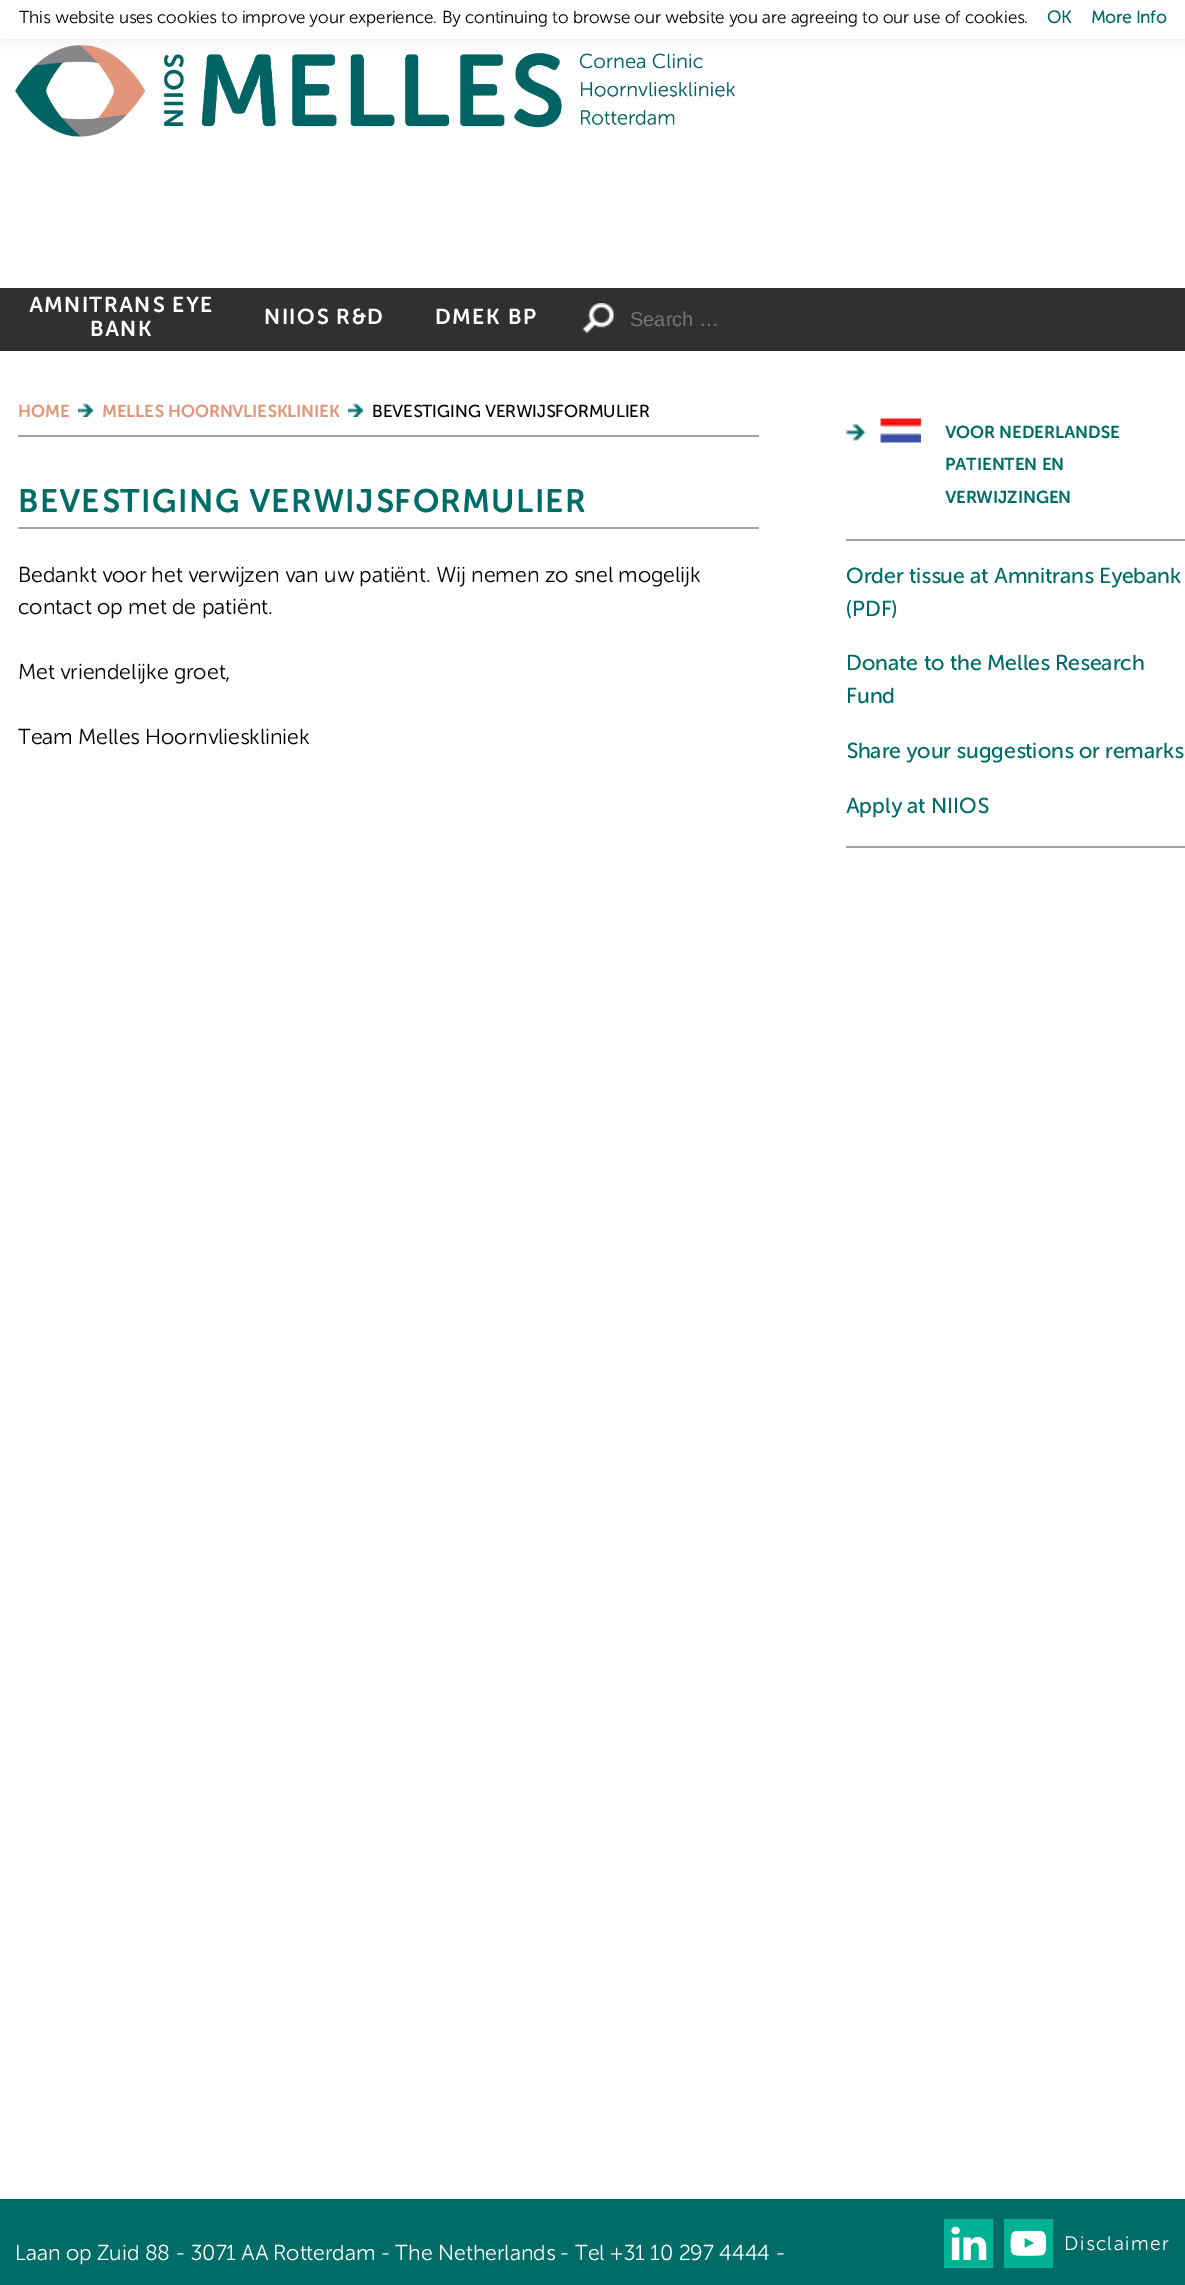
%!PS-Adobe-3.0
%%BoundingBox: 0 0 1185 2285
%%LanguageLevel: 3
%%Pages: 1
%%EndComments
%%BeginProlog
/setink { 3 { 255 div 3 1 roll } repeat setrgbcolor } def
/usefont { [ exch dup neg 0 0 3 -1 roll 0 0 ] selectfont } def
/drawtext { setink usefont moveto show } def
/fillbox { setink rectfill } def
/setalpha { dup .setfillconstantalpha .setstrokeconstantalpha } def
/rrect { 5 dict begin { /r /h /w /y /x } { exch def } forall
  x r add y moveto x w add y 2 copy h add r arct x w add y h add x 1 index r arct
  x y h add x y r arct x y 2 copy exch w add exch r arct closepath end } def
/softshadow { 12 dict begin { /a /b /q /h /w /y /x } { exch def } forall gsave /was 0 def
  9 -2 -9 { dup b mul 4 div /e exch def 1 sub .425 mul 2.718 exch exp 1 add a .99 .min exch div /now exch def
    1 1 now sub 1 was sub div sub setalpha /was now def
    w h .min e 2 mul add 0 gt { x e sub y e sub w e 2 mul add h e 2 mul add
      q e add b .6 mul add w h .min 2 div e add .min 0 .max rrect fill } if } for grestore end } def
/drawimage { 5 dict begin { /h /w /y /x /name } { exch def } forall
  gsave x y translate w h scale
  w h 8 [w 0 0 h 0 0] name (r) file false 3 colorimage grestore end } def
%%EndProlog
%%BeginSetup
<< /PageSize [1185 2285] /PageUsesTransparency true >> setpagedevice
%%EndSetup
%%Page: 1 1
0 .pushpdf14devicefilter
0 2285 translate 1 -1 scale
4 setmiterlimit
0 0 1185 2285 255 255 255 fillbox
(assets/img1.rgb) 15 45 720 92 drawimage
172 171 171 setink
0 -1 1185 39 0 7.5 0.3 softshadow
0 0 1185 39 255 255 255 fillbox
(This website uses cookies to improve your experience. By continuing to browse our website you are agreeing to our use of cookies.) 19 23 /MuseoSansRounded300-Regular 17.28 0 0 0 drawtext
(OK) 1047 23 /MuseoSansRounded300-Bold 17.28 0 108 104 drawtext
(More Info) 1091 23 /MuseoSansRounded300-Bold 17.28 0 108 104 drawtext
0 288 1185 63 50 47 49 fillbox
/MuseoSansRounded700-Regular 21.6 usefont
255 255 255 setink
29 312 moveto 1.5 0 (AMNITRANS EYE) ashow
90 336 moveto 1.5 0 (BANK) ashow
264 324 moveto 1.5 0 (NIIOS R&D) ashow
435 324 moveto 1.5 0 (DMEK BP) ashow
(assets/img2.rgb) 582 303 32 31 drawimage
(Search …) 630 326 /LiberationSans-Regular 20 117 117 117 drawtext
18 435 741 2 163 163 167 fillbox
(HOME) 18 417 /MuseoSansRounded700-Regular 17.28 226 149 120 drawtext
(assets/img3.rgb) 78 403 15 14 drawimage
(MELLES HOORNVLIESKLINIEK) 102 417 /MuseoSansRounded700-Regular 17.28 226 149 120 drawtext
(assets/img4.rgb) 348 403 15 14 drawimage
(BEVESTIGING VERWIJSFORMULIER) 372 417 /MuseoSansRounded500-Regular 17.28 0 0 0 drawtext
18 527 741 2 163 163 167 fillbox
/MuseoSansRounded700-Regular 32.4 usefont
0 108 104 setink
18 512 moveto -1 0 32 1.5 0 (BEVESTIGING VERWIJSFORMULIER) awidthshow
(Bedankt voor het verwijzen van uw patiënt. Wij nemen zo snel mogelijk) 18 582 /MuseoSansRounded300-Regular 21.6 0 0 0 drawtext
(contact op met de patiënt.) 18 614 /MuseoSansRounded300-Regular 21.6 0 0 0 drawtext
(Met vriendelijke groet,) 18 679 /MuseoSansRounded300-Regular 21.6 0 0 0 drawtext
(Team Melles Hoornvlieskliniek) 18 744 /MuseoSansRounded300-Regular 21.6 0 0 0 drawtext
846 539 339 2 163 163 167 fillbox
(assets/img5.rgb) 846 424 20 17 drawimage
(assets/img6.rgb) 880 418 41 25 drawimage
(VOOR NEDERLANDSE) 945 438 /MuseoSansRounded700-Regular 17.28 0 108 104 drawtext
(PATIENTEN EN) 945 470 /MuseoSansRounded700-Regular 17.28 0 108 104 drawtext
(VERWIJZINGEN) 945 503 /MuseoSansRounded700-Regular 17.28 0 108 104 drawtext
846 846 339 2 163 163 167 fillbox
(Order tissue at Amnitrans Eyebank) 846 583 /MuseoSansRounded500-Regular 21.6 0 108 104 drawtext
(\(PDF\)) 846 616 /MuseoSansRounded500-Regular 21.6 0 108 104 drawtext
(Donate to the Melles Research) 846 670 /MuseoSansRounded500-Regular 21.6 0 108 104 drawtext
(Fund) 846 703 /MuseoSansRounded500-Regular 21.6 0 108 104 drawtext
(Share your suggestions or remarks) 846 758 /MuseoSansRounded500-Regular 21.6 0 108 104 drawtext
(Apply at NIIOS) 846 813 /MuseoSansRounded500-Regular 21.6 0 108 104 drawtext
0 2199 1185 86 0 108 104 fillbox
(Laan op Zuid 88 - 3071 AA Rotterdam - The Netherlands - Tel +31 10 297 4444 -) 15 2260 /MuseoSansRounded300-Regular 21.6 255 255 255 drawtext
(assets/img7.rgb) 944 2219 49 49 drawimage
(assets/img8.rgb) 1004 2219 49 49 drawimage
/MuseoSansRounded300-Regular 19.5 usefont
1064 2250 moveto 1.5 0 (Disclaimer) ashow
.poppdf14devicefilter showpage
%%EOF
